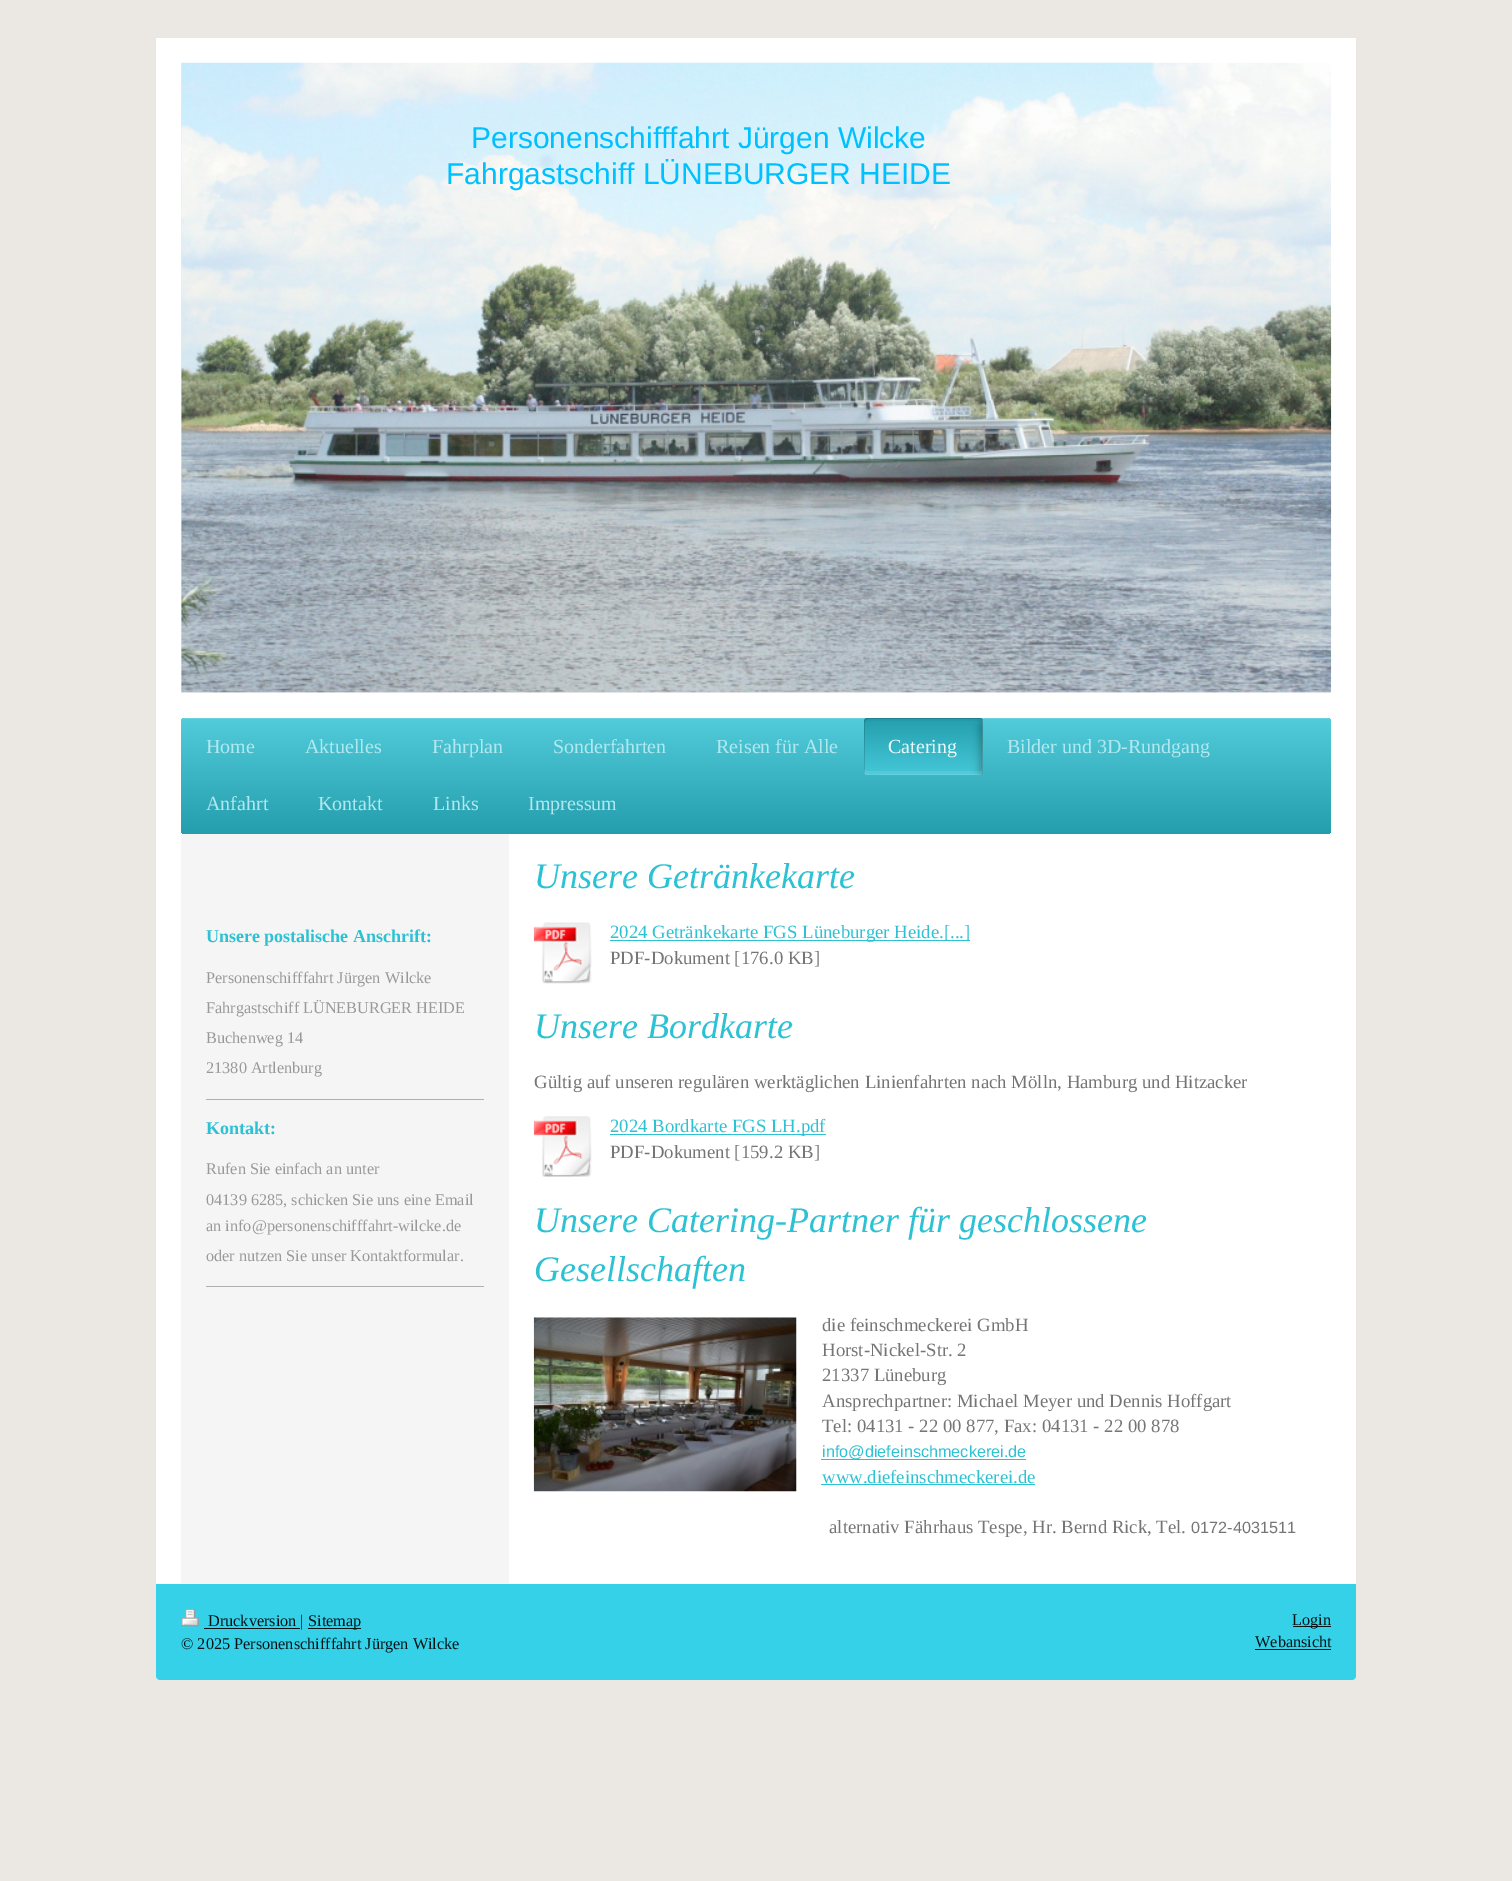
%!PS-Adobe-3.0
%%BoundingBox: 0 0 1512 1881
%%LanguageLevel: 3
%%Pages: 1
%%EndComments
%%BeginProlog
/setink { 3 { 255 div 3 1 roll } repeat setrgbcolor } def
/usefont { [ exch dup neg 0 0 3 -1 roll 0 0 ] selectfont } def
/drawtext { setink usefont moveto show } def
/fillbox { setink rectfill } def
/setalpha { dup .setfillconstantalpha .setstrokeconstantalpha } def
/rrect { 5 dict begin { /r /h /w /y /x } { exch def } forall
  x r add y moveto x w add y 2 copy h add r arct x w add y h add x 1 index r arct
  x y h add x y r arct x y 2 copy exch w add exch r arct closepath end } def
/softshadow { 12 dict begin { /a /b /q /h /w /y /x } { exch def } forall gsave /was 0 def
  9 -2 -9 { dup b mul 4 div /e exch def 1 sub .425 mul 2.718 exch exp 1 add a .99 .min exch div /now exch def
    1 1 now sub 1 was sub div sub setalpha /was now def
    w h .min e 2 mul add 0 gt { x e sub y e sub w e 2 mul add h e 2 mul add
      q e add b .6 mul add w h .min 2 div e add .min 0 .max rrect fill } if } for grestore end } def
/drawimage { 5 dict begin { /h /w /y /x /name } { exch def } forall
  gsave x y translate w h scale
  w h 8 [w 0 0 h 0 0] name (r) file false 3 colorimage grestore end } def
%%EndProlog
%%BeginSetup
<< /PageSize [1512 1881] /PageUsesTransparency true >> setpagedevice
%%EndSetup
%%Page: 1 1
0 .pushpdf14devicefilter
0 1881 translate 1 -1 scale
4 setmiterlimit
0 0 1512 1881 235 231 226 fillbox
255 255 255 setink
156 38 moveto 1356 38 lineto 1356 1676 lineto 1356 1678 1354 1680 1352 1680 curveto 160 1680 lineto 158 1680 156 1678 156 1676 curveto closepath fill
181 63 1150 630 238 238 238 fillbox
(assets/img1.rgb) 181 62 1151 631 drawimage
(Personenschifffahrt Jürgen Wilcke) 471 148 /LiberationSans-Regular 30 1 192 254 drawtext
(Fahrgastschiff LÜNEBURGER HEIDE) 446 184 /LiberationSans-Regular 30 1 192 254 drawtext
gsave 181 718 1150 116 4 rrect clip newpath
<< /ShadingType 2 /ColorSpace /DeviceRGB /Coords [181 718 181 834] /Extend [true true] /Function << /FunctionType 2 /Domain [0 1] /C0 [0.322 0.8 0.859] /C1 [0.141 0.62 0.678] /N 1 >> >> shfill grestore
43 189 207 setink
185 719 moveto 1328 719 lineto 1330 720 lineto 1330 719 1328 718 1327 718 curveto 185 718 lineto 183 718 181 720 181 722 curveto 181 720 183 719 185 719 curveto closepath fill
0.3 setalpha
255 255 255 setink
185 719 moveto 1328 719 lineto 1330 720 lineto 1330 719 1328 718 1327 718 curveto 185 718 lineto 183 718 181 720 181 722 curveto 181 720 183 719 185 719 curveto closepath fill
1 setalpha
(Home) 206 753 /LiberationSerif-Regular 20 177 232 239 drawtext
(Aktuelles) 305 753 /LiberationSerif-Regular 20 177 232 239 drawtext
(Fahrplan) 432 753 /LiberationSerif-Regular 20 177 232 239 drawtext
(Sonderfahrten) 553 753 /LiberationSerif-Regular 20 177 232 239 drawtext
(Reisen für Alle) 716 753 /LiberationSerif-Regular 20 177 232 239 drawtext
gsave 864 718 119 57 4 rrect clip newpath
<< /ShadingType 2 /ColorSpace /DeviceRGB /Coords [864 775 864 718] /Extend [true true] /Function << /FunctionType 2 /Domain [0 1] /C0 [0.271 0.784 0.847] /C1 [0.141 0.62 0.678] /N 1 >> >> shfill grestore
0.15 setalpha
0 0 0 setink
869 719 moveto 982 719 lineto 981 719 980 718 979 718 curveto 868 718 lineto 866 718 864 720 864 722 curveto 864 771 lineto 864 772 865 773 865 774 curveto 865 730 lineto 865 726 863 719 869 719 curveto closepath fill
0.04 setalpha
868 721 moveto 979 721 lineto 981 721 982 723 982 725 curveto 982 774 lineto 983 773 983 772 983 771 curveto 983 722 lineto 983 720 981 718 979 718 curveto 868 718 lineto 866 718 864 720 864 722 curveto 864 725 lineto 864 723 865 721 868 721 curveto closepath fill
0.08 setalpha
255 255 255 setink
864 768 moveto 864 771 lineto 864 773 866 775 868 775 curveto 979 775 lineto 981 775 983 773 983 771 curveto 983 722 lineto 983 721 983 720 982 719 curveto 982 768 lineto 982 770 981 771 979 771 curveto 868 771 lineto 865 771 864 770 864 768 curveto closepath fill
0.1 setalpha
864 770 moveto 864 771 lineto 864 773 866 775 868 775 curveto 979 775 lineto 981 775 983 773 983 771 curveto 983 722 lineto 983 721 983 720 982 719 curveto 982 753 lineto 982 778 987 774 960 774 curveto 886 774 lineto 878 774 864 777 864 770 curveto closepath fill
1 setalpha
(Catering) 888 753 /LiberationSerif-Regular 20 234 249 251 drawtext
gsave
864 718 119 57 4 rrect clip newpath
0 0 0 setink
980 720 20 58 10 4.5 0.3 softshadow
grestore
(Bilder und 3D-Rundgang) 1007 753 /LiberationSerif-Regular 20 177 232 239 drawtext
(Anfahrt) 206 810 /LiberationSerif-Regular 20 177 232 239 drawtext
(Kontakt) 318 810 /LiberationSerif-Regular 20 177 232 239 drawtext
(Links) 433 810 /LiberationSerif-Regular 20 177 232 239 drawtext
(Impressum) 528 810 /LiberationSerif-Regular 20 177 232 239 drawtext
181 834 328 750 245 245 245 fillbox
(Unsere Getränkekarte) 534 888 /LiberationSerif-Italic 36 44 193 211 drawtext
(assets/img2.rgb) 533 922 59 62 drawimage
610 940 360 1 44 193 211 fillbox
(2024 Getränkekarte FGS Lüneburger Heide.[...]) 610 938 /LiberationSerif-Regular 18.75 44 193 211 drawtext
(PDF-Dokument [176.0 KB]) 610 964 /LiberationSerif-Regular 18.75 117 117 117 drawtext
(Unsere Bordkarte) 534 1038 /LiberationSerif-Italic 36 44 193 211 drawtext
(Gültig auf unseren regulären werktäglichen Linienfahrten nach Mölln, Hamburg und Hitzacker) 534 1088 /LiberationSerif-Regular 18.75 117 117 117 drawtext
(assets/img3.rgb) 533 1116 59 61 drawimage
610 1134 216 1 44 193 211 fillbox
(2024 Bordkarte FGS LH.pdf) 610 1132 /LiberationSerif-Regular 18.75 44 193 211 drawtext
(PDF-Dokument [159.2 KB]) 610 1158 /LiberationSerif-Regular 18.75 117 117 117 drawtext
(Unsere Catering-Partner für geschlossene) 534 1232 /LiberationSerif-Italic 36 44 193 211 drawtext
(Gesellschaften) 534 1281 /LiberationSerif-Italic 36 44 193 211 drawtext
(assets/img4.rgb) 533 1317 264 175 drawimage
(die feinschmeckerei GmbH) 822 1331 /LiberationSerif-Regular 18.75 117 117 117 drawtext
(Horst-Nickel-Str. 2) 822 1356 /LiberationSerif-Regular 18.75 117 117 117 drawtext
(21337 Lüneburg) 822 1381 /LiberationSerif-Regular 18.75 117 117 117 drawtext
(Ansprechpartner: Michael Meyer und Dennis Hoffgart) 822 1407 /LiberationSerif-Regular 18.75 117 117 117 drawtext
(Tel: 04131 - 22 00 877, Fax: 04131 - 22 00 878) 822 1432 /LiberationSerif-Regular 18.75 117 117 117 drawtext
821 1459 205 1 44 193 211 fillbox
(info@diefeinschmeckerei.de) 822 1457 /LiberationSans-Regular 16.25 44 193 211 drawtext
(www.diefeinschmeckerei.de) 822 1483 /LiberationSerif-Regular 18.75 44 193 211 drawtext
821 1484 214 1 44 193 211 fillbox
(alternativ Fährhaus Tespe, Hr. Bernd Rick, Tel.) 829 1533 /LiberationSerif-Regular 18.75 117 117 117 drawtext
(0172-4031511) 1191 1533 /LiberationSans-Regular 16.25 117 117 117 drawtext
(Unsere postalische Anschrift:) 206 942 /LiberationSerif-Bold 18 44 193 211 drawtext
(Personenschifffahrt Jürgen Wilcke) 206 983 /LiberationSerif-Regular 16.25 153 153 153 drawtext
(Fahrgastschiff LÜNEBURGER HEIDE) 206 1013 /LiberationSerif-Regular 16.25 153 153 153 drawtext
(Buchenweg 14) 206 1043 /LiberationSerif-Regular 16.25 153 153 153 drawtext
(21380 Artlenburg) 206 1073 /LiberationSerif-Regular 16.25 153 153 153 drawtext
206 1099 278 1 176 176 176 fillbox
(Kontakt:) 206 1134 /LiberationSerif-Bold 18 44 193 211 drawtext
(Rufen Sie einfach an unter) 206 1174 /LiberationSerif-Regular 16.25 153 153 153 drawtext
(04139 6285, schicken Sie uns eine Email) 206 1205 /LiberationSerif-Regular 16.25 153 153 153 drawtext
(an info@personenschifffahrt-wilcke.de) 206 1231 /LiberationSerif-Regular 16.25 153 153 153 drawtext
(oder nutzen Sie unser Kontaktformular.) 206 1261 /LiberationSerif-Regular 16.25 153 153 153 drawtext
206 1286 278 1 176 176 176 fillbox
53 209 232 setink
156 1584 moveto 1356 1584 lineto 1356 1676 lineto 1356 1678 1354 1680 1352 1680 curveto 160 1680 lineto 158 1680 156 1678 156 1676 curveto closepath fill
(assets/img5.rgb) 181 1608 18 19 drawimage
204 1628 96 1 5 21 23 fillbox
(Druckversion |) 208 1626 /LiberationSerif-Regular 16.25 5 21 23 drawtext
308 1628 53 1 5 21 23 fillbox
(Sitemap) 308 1626 /LiberationSerif-Regular 16.25 5 21 23 drawtext
(© 2025 Personenschifffahrt Jürgen Wilcke) 181 1649 /LiberationSerif-Regular 16.25 5 21 23 drawtext
1293 1626 38 1 5 21 23 fillbox
(Login) 1292 1625 /LiberationSerif-Regular 16.25 5 21 23 drawtext
(Webansicht) 1255 1647 /LiberationSerif-Regular 16.25 5 21 23 drawtext
1255 1649 76 1 5 21 23 fillbox
.poppdf14devicefilter showpage
%%EOF
